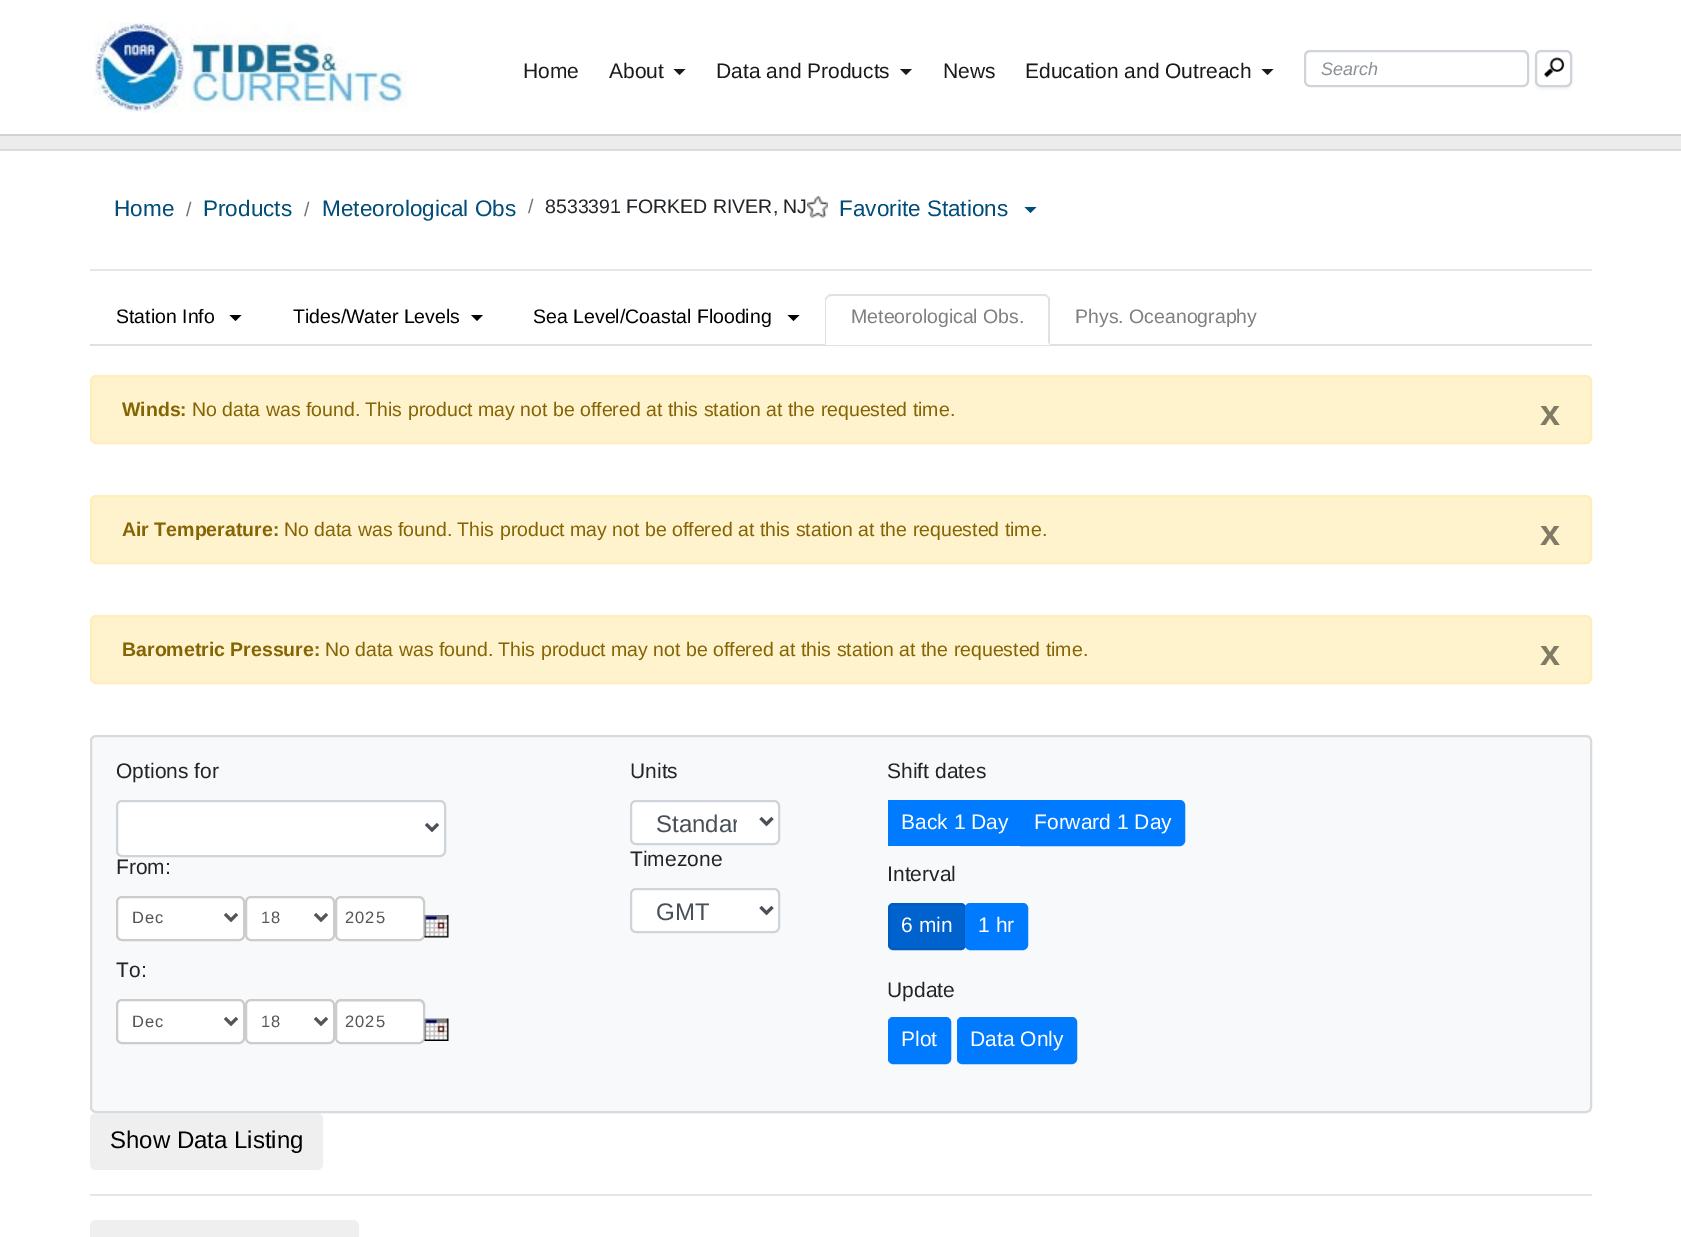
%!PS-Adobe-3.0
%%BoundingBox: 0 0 1681 1237
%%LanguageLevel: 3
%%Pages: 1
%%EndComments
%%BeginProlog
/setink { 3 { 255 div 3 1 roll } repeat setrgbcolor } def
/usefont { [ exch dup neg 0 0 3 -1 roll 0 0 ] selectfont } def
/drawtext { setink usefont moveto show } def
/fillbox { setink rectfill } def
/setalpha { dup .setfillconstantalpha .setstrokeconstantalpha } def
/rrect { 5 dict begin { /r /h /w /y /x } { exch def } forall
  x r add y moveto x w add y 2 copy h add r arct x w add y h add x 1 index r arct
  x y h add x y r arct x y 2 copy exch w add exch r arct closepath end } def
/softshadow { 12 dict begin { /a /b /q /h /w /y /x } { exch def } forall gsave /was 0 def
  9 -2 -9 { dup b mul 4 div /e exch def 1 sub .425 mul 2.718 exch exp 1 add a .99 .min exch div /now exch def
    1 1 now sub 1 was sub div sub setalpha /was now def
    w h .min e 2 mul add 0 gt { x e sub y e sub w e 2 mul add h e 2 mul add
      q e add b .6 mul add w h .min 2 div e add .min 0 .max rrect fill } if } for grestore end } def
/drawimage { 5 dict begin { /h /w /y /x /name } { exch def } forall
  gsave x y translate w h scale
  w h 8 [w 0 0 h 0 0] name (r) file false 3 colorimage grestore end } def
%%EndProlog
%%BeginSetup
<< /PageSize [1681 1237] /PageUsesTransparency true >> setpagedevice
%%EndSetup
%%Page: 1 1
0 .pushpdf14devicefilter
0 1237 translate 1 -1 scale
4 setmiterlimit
0 0 1681 1237 255 255 255 fillbox
0 150 1681 1 223 223 223 fillbox
0 134 1681 2 209 209 209 fillbox
(assets/img1.rgb) 94 22 91 91 drawimage
(assets/img2.rgb) 190 22 217 91 drawimage
(Home) 523 78 /LiberationSans-Regular 21 26 26 26 drawtext
(About) 609 78 /LiberationSans-Regular 21 26 26 26 drawtext
673.5 69 moveto 685.5 69 lineto 679.5 75 lineto closepath fill
(Data and Products) 716 78 /LiberationSans-Regular 21 26 26 26 drawtext
900 69 moveto 912 69 lineto 906 75 lineto closepath fill
(News) 943 78 /LiberationSans-Regular 21 26 26 26 drawtext
(Education and Outreach) 1025 78 /LiberationSans-Regular 21 26 26 26 drawtext
1261.5 69 moveto 1273.5 69 lineto 1267.5 75 lineto closepath fill
236 236 236 setink
1310 52 moveto 1522 52 lineto 1525 52 1527 55 1527 57 curveto 1527 56 lineto 1527 53 1525 51 1522 51 curveto 1310 51 lineto 1307 51 1305 53 1305 56 curveto 1305 57 lineto 1305 55 1307 52 1310 52 curveto closepath fill
206 212 218 setink
2 setlinewidth
1305 51 223 35 5 rrect stroke
(Search) 1321 75 /LiberationSans-Italic 18 137 145 151 drawtext
0 0 0 setink
1535 51 37 38 6 1.5 0.05 softshadow
255 255 255 setink
1536 51 35 35 5 rrect gsave fill grestore
206 212 218 setink
stroke
(assets/img3.rgb) 1544 57 21 21 drawimage
0 136 1681 13 236 236 236 fillbox
0 149 1681 1 217 217 217 fillbox
(Home) 114 216 /LiberationSans-Regular 22.5 0 77 122 drawtext
(/) 186 216 /LiberationSans-Regular 19.5 108 117 125 drawtext
(Products) 203 216 /LiberationSans-Regular 22.5 0 77 122 drawtext
(/) 304 216 /LiberationSans-Regular 19.5 108 117 125 drawtext
(Meteorological Obs) 322 216 /LiberationSans-Regular 22.5 0 77 122 drawtext
(/) 528 213 /LiberationSans-Regular 19.5 108 117 125 drawtext
(8533391 FORKED RIVER, NJ) 545 213 /LiberationSans-Regular 19.5 33 37 41 drawtext
(assets/img4.rgb) 807 196 21 22 drawimage
(Favorite Stations) 839 216 /LiberationSans-Regular 22.5 0 77 122 drawtext
1024.5 207 moveto 1036.5 207 lineto 1030.5 213 lineto closepath fill
90 269 1502 2 230 230 230 fillbox
90 344 1502 2 222 226 230 fillbox
(Station Info) 116 323 /LiberationSans-Regular 19.5 0 0 0 drawtext
229.5 315 moveto 241.5 315 lineto 235.5 321 lineto closepath fill
(Tides/Water Levels) 293 323 /LiberationSans-Regular 19.5 0 0 0 drawtext
471 315 moveto 483 315 lineto 477 321 lineto closepath fill
(Sea Level/Coastal Flooding) 533 323 /LiberationSans-Regular 19.5 0 0 0 drawtext
787.5 315 moveto 799.5 315 lineto 793.5 321 lineto closepath fill
255 255 255 setink
831 294 moveto 1044 294 lineto 1047.5 294 1050 296.5 1050 300 curveto 1050 345 lineto 825 345 lineto 825 300 lineto 825 296.5 827.5 294 831 294 curveto closepath fill
222 226 230 setink
831 294 moveto 830 294 828 295 827 296 curveto 828 297 lineto 831 296 lineto 1044 296 lineto 1045 296 1046 296 1047 297 curveto 1048 296 lineto 1047 295 1046 294 1044 294 curveto closepath fill
1050 345 moveto 1050 300 lineto 1050 298 1049 297 1048 296 curveto 1047 297 lineto 1048 298 1048 299 1048 300 curveto 1048 343 lineto closepath fill
255 255 255 setink
1050 345 moveto 1048 343 lineto 1048 344 lineto 826 344 lineto 825 345 lineto closepath fill
222 226 230 setink
825 345 moveto 826 344 lineto 826 300 lineto 828 297 lineto 827 296 lineto 826 297 825 298 825 300 curveto closepath fill
(Meteorological Obs.) 851 323 /LiberationSans-Regular 19.5 128 128 128 drawtext
(Phys. Oceanography) 1075 323 /LiberationSans-Regular 19.5 128 128 128 drawtext
255 243 205 setink
91 376 1500 67 5 rrect gsave fill grestore
255 238 186 setink
stroke
(Winds:) 122 416 /LiberationSans-Bold 19.5 133 100 4 drawtext
(No data was found. This product may not be offered at this station at the requested time.) 192 416 /LiberationSans-Regular 19.5 133 100 4 drawtext
(x) 1540 425 /LiberationSans-Bold 36 128 122 103 drawtext
255 243 205 setink
91 496 1500 67 5 rrect gsave fill grestore
255 238 186 setink
stroke
(Air Temperature:) 122 536 /LiberationSans-Bold 19.5 133 100 4 drawtext
(No data was found. This product may not be offered at this station at the requested time.) 284 536 /LiberationSans-Regular 19.5 133 100 4 drawtext
(x) 1540 545 /LiberationSans-Bold 36 128 122 103 drawtext
255 243 205 setink
91 616 1500 67 5 rrect gsave fill grestore
255 238 186 setink
stroke
(Barometric Pressure:) 122 656 /LiberationSans-Bold 19.5 133 100 4 drawtext
(No data was found. This product may not be offered at this station at the requested time.) 325 656 /LiberationSans-Regular 19.5 133 100 4 drawtext
(x) 1540 665 /LiberationSans-Bold 36 128 122 103 drawtext
248 249 250 setink
91 736 1500 376 5 rrect gsave fill grestore
217 218 219 setink
stroke
(Options for) 116 778 /LiberationSans-Regular 21 33 37 41 drawtext
255 255 255 setink
117 801 328 55 5 rrect gsave fill grestore
206 212 218 setink
stroke
73 80 87 setink
3 setlinewidth
426 824 moveto 432 830 lineto 438 824 lineto stroke
(From:) 116 874 /LiberationSans-Regular 21 33 37 41 drawtext
255 255 255 setink
117 897 127 43 5 rrect gsave fill grestore
204 204 204 setink
2 setlinewidth
stroke
85 85 85 setink
3 setlinewidth
225 914 moveto 231 920 lineto 237 914 lineto stroke
/LiberationSans-Regular 16.5 usefont
132 923 moveto 1 0 (Dec) ashow
255 255 255 setink
246 897 88 43 5 rrect gsave fill grestore
204 204 204 setink
2 setlinewidth
stroke
85 85 85 setink
3 setlinewidth
315 914 moveto 321 920 lineto 327 914 lineto stroke
261 923 moveto 1 0 (18) ashow
255 255 255 setink
335 896 90 45 6 rrect fill
236 236 236 setink
340 898 moveto 418 898 lineto 421 898 423 901 423 903 curveto 423 894 411 897 405 897 curveto 354 897 lineto 348 897 336 894 336 903 curveto 336 901 338 898 340 898 curveto closepath fill
204 204 204 setink
2 setlinewidth
336 897 88 43 5 rrect stroke
85 85 85 setink
345 923 moveto 1 0 (2025) ashow
(assets/img5.rgb) 424 915 25 23 drawimage
(To:) 116 977 /LiberationSans-Regular 21 33 37 41 drawtext
255 255 255 setink
117 1000 127 43 5 rrect gsave fill grestore
204 204 204 setink
stroke
85 85 85 setink
3 setlinewidth
225 1018 moveto 231 1024 lineto 237 1018 lineto stroke
/LiberationSans-Regular 16.5 usefont
132 1027 moveto 1 0 (Dec) ashow
255 255 255 setink
246 1000 88 43 5 rrect gsave fill grestore
204 204 204 setink
2 setlinewidth
stroke
85 85 85 setink
3 setlinewidth
315 1018 moveto 321 1024 lineto 327 1018 lineto stroke
261 1027 moveto 1 0 (18) ashow
255 255 255 setink
335 999 90 45 6 rrect fill
236 236 236 setink
340 1002 moveto 418 1002 lineto 421 1002 423 1004 423 1006 curveto 423 1003 421 1001 418 1001 curveto 341 1001 lineto 338 1001 336 1003 336 1006 curveto 336 1004 338 1002 340 1002 curveto closepath fill
204 204 204 setink
2 setlinewidth
336 1000 88 43 5 rrect stroke
85 85 85 setink
345 1027 moveto 1 0 (2025) ashow
(assets/img6.rgb) 424 1018 25 23 drawimage
(Units) 630 778 /LiberationSans-Regular 21 33 37 41 drawtext
255 255 255 setink
631 801 148 43 5 rrect gsave fill grestore
206 212 218 setink
stroke
73 80 87 setink
3 setlinewidth
760.5 818 moveto 766.5 824 lineto 772.5 818 lineto stroke
gsave
656 810 81 29 rectclip
(Standar) 656 832 /LiberationSans-Regular 24 73 80 87 drawtext
grestore
(Timezone) 630 866 /LiberationSans-Regular 21 33 37 41 drawtext
255 255 255 setink
631 889 148 43 5 rrect gsave fill grestore
206 212 218 setink
2 setlinewidth
stroke
73 80 87 setink
3 setlinewidth
760.5 907 moveto 766.5 913 lineto 772.5 907 lineto stroke
(GMT) 656 920 /LiberationSans-Regular 24 73 80 87 drawtext
(Shift dates) 887 778 /LiberationSans-Regular 21 33 37 41 drawtext
888 800 132 46 0 123 255 fillbox
(Back 1 Day) 901 829 /LiberationSans-Regular 21 255 255 255 drawtext
0 123 255 setink
1021 801 moveto 1180 801 lineto 1182 801 1184 803 1184 805 curveto 1184 841 lineto 1184 843 1182 845 1180 845 curveto 1021 845 lineto closepath gsave fill grestore
2 setlinewidth
stroke
(Forward 1 Day) 1034 829 /LiberationSans-Regular 21 255 255 255 drawtext
(Interval) 887 881 /LiberationSans-Regular 21 33 37 41 drawtext
0 98 204 setink
889 904 76 45 4 rrect gsave fill grestore
0 92 191 setink
stroke
(6 min) 901 932 /LiberationSans-Regular 21 255 255 255 drawtext
0 123 255 setink
966 904 61 45 4 rrect gsave fill grestore
stroke
(1 hr) 978 932 /LiberationSans-Regular 21 255 255 255 drawtext
(Update) 887 997 /LiberationSans-Regular 21 33 37 41 drawtext
0 123 255 setink
889 1018 61 45 4 rrect gsave fill grestore
stroke
(Plot) 901 1046 /LiberationSans-Regular 21 255 255 255 drawtext
0 123 255 setink
958 1018 118 45 4 rrect gsave fill grestore
stroke
(Data Only) 970 1046 /LiberationSans-Regular 21 255 255 255 drawtext
239 239 239 setink
90 1113 233 57 6 rrect fill
(Show Data Listing) 110 1148 /LiberationSans-Regular 24 0 0 0 drawtext
90 1194 1502 2 230 230 230 fillbox
239 239 239 setink
90 1220 269 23 6 rrect fill
.poppdf14devicefilter showpage
%%EOF
